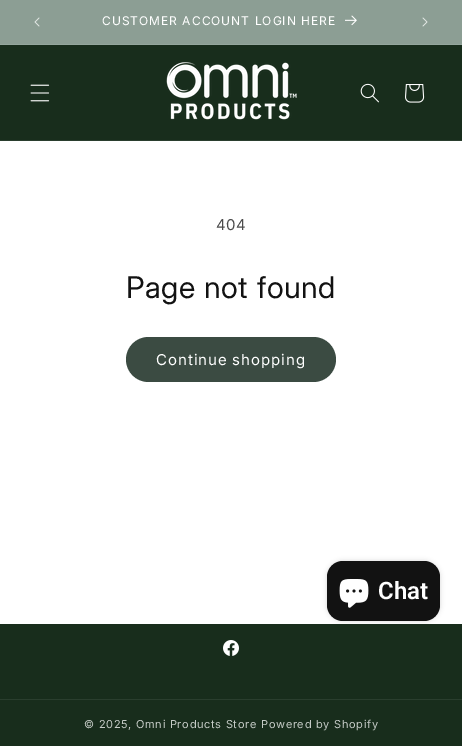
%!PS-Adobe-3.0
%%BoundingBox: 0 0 462 746
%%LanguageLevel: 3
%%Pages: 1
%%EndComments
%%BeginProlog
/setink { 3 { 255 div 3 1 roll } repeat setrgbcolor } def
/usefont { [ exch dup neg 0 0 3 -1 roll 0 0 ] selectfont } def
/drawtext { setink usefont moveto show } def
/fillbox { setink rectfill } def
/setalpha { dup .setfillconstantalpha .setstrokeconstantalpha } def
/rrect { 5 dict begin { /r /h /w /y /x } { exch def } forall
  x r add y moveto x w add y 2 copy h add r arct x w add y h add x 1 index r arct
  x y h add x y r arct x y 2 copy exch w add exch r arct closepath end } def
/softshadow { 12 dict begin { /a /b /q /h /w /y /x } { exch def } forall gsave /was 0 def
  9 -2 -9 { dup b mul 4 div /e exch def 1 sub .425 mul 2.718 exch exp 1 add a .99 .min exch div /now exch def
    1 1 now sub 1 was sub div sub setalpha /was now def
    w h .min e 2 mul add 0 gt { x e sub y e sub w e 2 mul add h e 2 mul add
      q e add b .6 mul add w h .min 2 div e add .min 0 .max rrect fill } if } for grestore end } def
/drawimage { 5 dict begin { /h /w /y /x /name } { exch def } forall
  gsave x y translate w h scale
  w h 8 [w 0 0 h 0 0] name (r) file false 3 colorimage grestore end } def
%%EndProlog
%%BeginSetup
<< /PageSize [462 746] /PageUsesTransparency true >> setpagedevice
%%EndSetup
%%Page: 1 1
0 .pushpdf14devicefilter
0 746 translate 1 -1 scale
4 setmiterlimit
0 0 462 746 255 255 255 fillbox
0 0 462 44 140 158 148 fillbox
0 44 462 1 149 166 157 fillbox
(assets/img1.rgb) 34 17 6 10 drawimage
/Inter-Regular 12 usefont
255 255 255 setink
102 25 moveto 1 0 (CUSTOMER ACCOUNT LOGIN HERE) ashow
(assets/img2.rgb) 345 15 12 11 drawimage
(assets/img3.rgb) 422 17 6 10 drawimage
0 45 462 95 24 45 28 fillbox
0 140 462 1 42 62 46 fillbox
(assets/img4.rgb) 30 84 20 18 drawimage
(assets/img5.rgb) 166 62 131 58 drawimage
(assets/img6.rgb) 360 83 19 20 drawimage
(assets/img7.rgb) 405 84 20 19 drawimage
/Inter-Regular 15 usefont
77 77 77 setink
216 230 moveto 0.6 0 (404) ashow
/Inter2-Regular 30 usefont
18 18 18 setink
126 298 moveto 0.6 0 (Page not found) ashow
59 75 66 setink
126 337 210 45 22.5 rrect fill
/Inter-Regular 15 usefont
255 255 255 setink
156 365 moveto -1 0 32 1 0 (Continue shopping) awidthshow
0 624 462 122 24 45 28 fillbox
0 0 0 setink
327 561 113 60 16 2.5 0.15 softshadow
18 18 18 setink
327 561 113 60 16 rrect fill
(assets/img8.rgb) 339 579 30 29 drawimage
(Chat) 378 599 /Roboto-SemiBold 24 255 255 255 drawtext
(assets/img9.rgb) 223 640 16 16 drawimage
0 699 462 1 42 62 46 fillbox
/Inter-Regular 11 usefont
197 203 198 setink
84 728 moveto 0.7 0 (© 2025, Omni Products Store Powered by Shopify) ashow
.poppdf14devicefilter showpage
%%EOF
